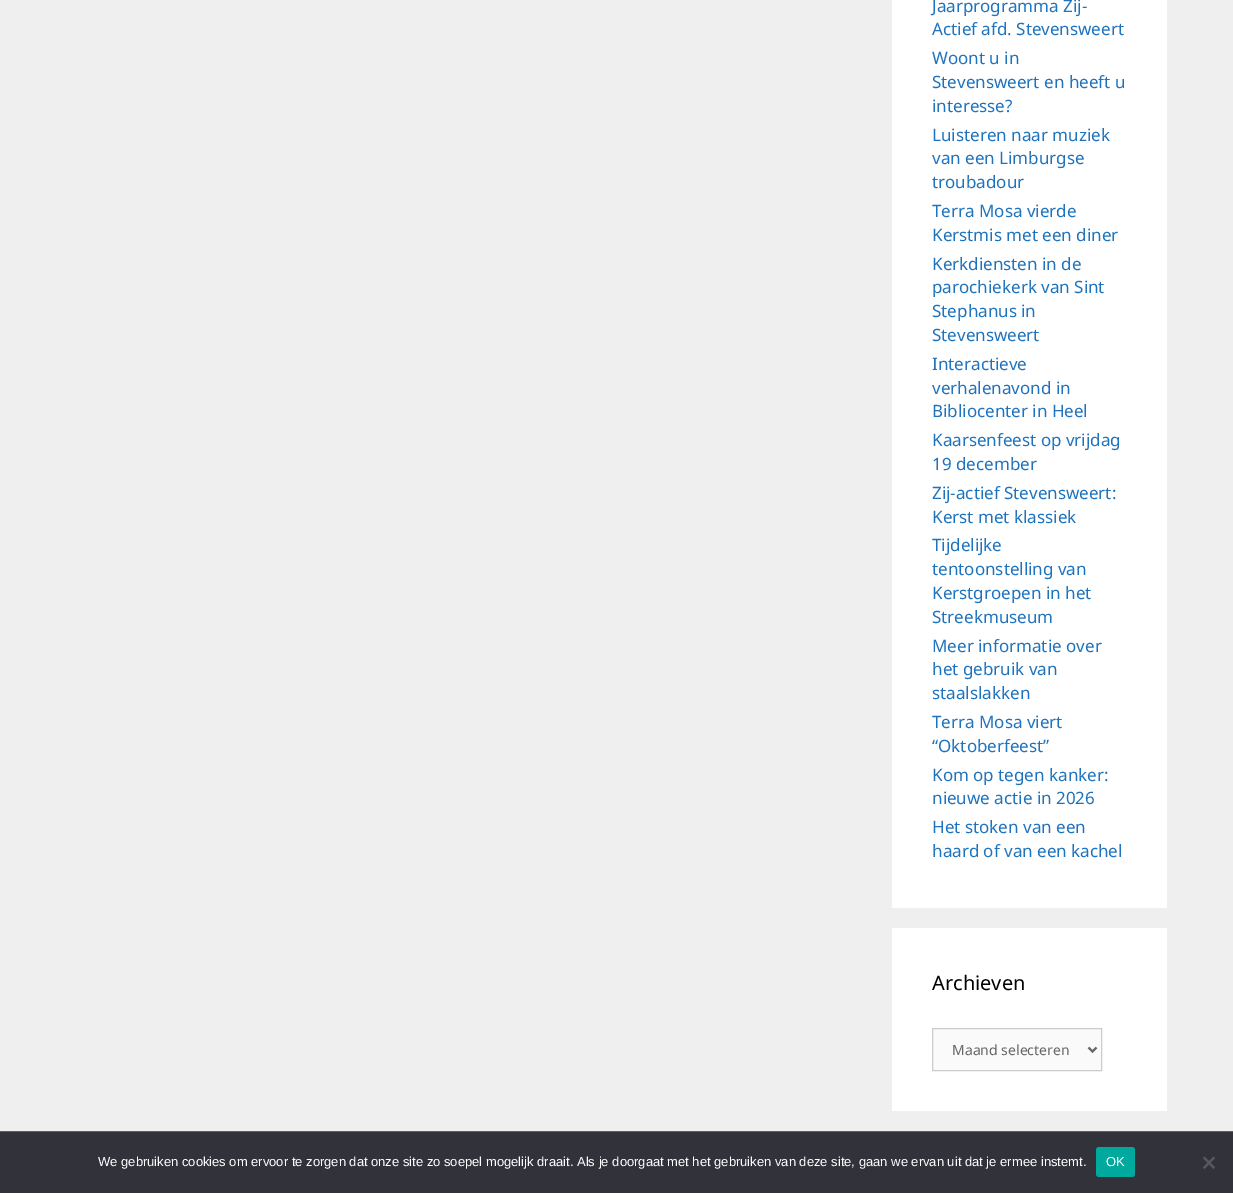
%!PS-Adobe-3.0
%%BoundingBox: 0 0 1233 1193
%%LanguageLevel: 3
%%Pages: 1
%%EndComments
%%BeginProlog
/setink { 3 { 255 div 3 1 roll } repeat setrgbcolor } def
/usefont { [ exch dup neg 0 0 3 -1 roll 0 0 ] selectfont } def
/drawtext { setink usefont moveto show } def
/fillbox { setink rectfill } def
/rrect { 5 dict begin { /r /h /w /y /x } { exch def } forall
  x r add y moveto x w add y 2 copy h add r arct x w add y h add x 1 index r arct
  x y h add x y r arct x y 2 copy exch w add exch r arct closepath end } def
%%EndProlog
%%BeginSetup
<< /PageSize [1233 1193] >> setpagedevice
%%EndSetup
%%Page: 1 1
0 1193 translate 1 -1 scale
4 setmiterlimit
0 0 1233 1193 239 239 239 fillbox
892 0 275 908 255 255 255 fillbox
(Jaarprogramma Zij-) 932 12 /NotoSans-Regular 17 30 115 190 drawtext
(Actief afd. Stevensweert) 932 35 /NotoSans-Regular 17 30 115 190 drawtext
(Woont u in) 932 64 /NotoSans-Regular 17 30 115 190 drawtext
(Stevensweert en heeft u) 932 88 /NotoSans-Regular 17 30 115 190 drawtext
(interesse?) 932 112 /NotoSans-Regular 17 30 115 190 drawtext
(Luisteren naar muziek) 932 141 /NotoSans-Regular 17 30 115 190 drawtext
(van een Limburgse) 932 164 /NotoSans-Regular 17 30 115 190 drawtext
(troubadour) 932 188 /NotoSans-Regular 17 30 115 190 drawtext
(Terra Mosa vierde) 932 217 /NotoSans-Regular 17 30 115 190 drawtext
(Kerstmis met een diner) 932 241 /NotoSans-Regular 17 30 115 190 drawtext
(Kerkdiensten in de) 932 270 /NotoSans-Regular 17 30 115 190 drawtext
(parochiekerk van Sint) 932 293 /NotoSans-Regular 17 30 115 190 drawtext
(Stephanus in) 932 317 /NotoSans-Regular 17 30 115 190 drawtext
(Stevensweert) 932 341 /NotoSans-Regular 17 30 115 190 drawtext
(Interactieve) 932 370 /NotoSans-Regular 17 30 115 190 drawtext
(verhalenavond in) 932 394 /NotoSans-Regular 17 30 115 190 drawtext
(Bibliocenter in Heel) 932 417 /NotoSans-Regular 17 30 115 190 drawtext
(Kaarsenfeest op vrijdag) 932 446 /NotoSans-Regular 17 30 115 190 drawtext
(19 december) 932 470 /NotoSans-Regular 17 30 115 190 drawtext
(Zij-actief Stevensweert:) 932 499 /NotoSans-Regular 17 30 115 190 drawtext
(Kerst met klassiek) 932 523 /NotoSans-Regular 17 30 115 190 drawtext
(Tijdelijke) 932 551 /NotoSans-Regular 17 30 115 190 drawtext
(tentoonstelling van) 932 575 /NotoSans-Regular 17 30 115 190 drawtext
(Kerstgroepen in het) 932 599 /NotoSans-Regular 17 30 115 190 drawtext
(Streekmuseum) 932 623 /NotoSans-Regular 17 30 115 190 drawtext
(Meer informatie over) 932 652 /NotoSans-Regular 17 30 115 190 drawtext
(het gebruik van) 932 675 /NotoSans-Regular 17 30 115 190 drawtext
(staalslakken) 932 699 /NotoSans-Regular 17 30 115 190 drawtext
(Terra Mosa viert) 932 728 /NotoSans-Regular 17 30 115 190 drawtext
(“Oktoberfeest”) 932 752 /NotoSans-Regular 17 30 115 190 drawtext
(Kom op tegen kanker:) 932 781 /NotoSans-Regular 17 30 115 190 drawtext
(nieuwe actie in 2026) 932 804 /NotoSans-Regular 17 30 115 190 drawtext
(Het stoken van een) 932 833 /NotoSans-Regular 17 30 115 190 drawtext
(haard of van een kachel) 932 857 /NotoSans-Regular 17 30 115 190 drawtext
892 928 275 183 255 255 255 fillbox
(Archieven) 932 990 /NotoSans-Regular 20 0 0 0 drawtext
250 250 250 setink
932.5 1028.5 moveto 1101.5 1028.5 lineto 1101.5 1070.5 lineto 932.5 1070.5 lineto closepath gsave fill grestore
204 204 204 setink
stroke
102 102 102 setink
2 setlinewidth
1088.5 1047.5 moveto 1092.5 1051.5 lineto 1096.5 1047.5 lineto stroke
(Maand selecteren) 952 1055 /NotoSans-Regular 14 102 102 102 drawtext
0 1131 1233 1 30 115 190 fillbox
0 1132 1233 61 50 50 58 fillbox
(We gebruiken cookies om ervoor te zorgen dat onze site zo soepel mogelijk draait. Als je doorgaat met het gebruiken van deze site, gaan we ervan uit dat je ermee instemt.) 98 1166 /LiberationSans-Regular 13 255 255 255 drawtext
0 169 157 setink
1096 1147 39 30 3 rrect fill
(OK) 1106 1166 /LiberationSans-Regular 13 255 255 255 drawtext
89 89 93 setink
1213.5 1156.5 moveto 1215 1158 lineto 1204.5 1169 lineto 1203 1167.5 lineto closepath fill
1203 1158 moveto 1204.5 1156.5 lineto 1215 1167.5 lineto 1213.5 1169 lineto closepath fill
showpage
%%EOF
